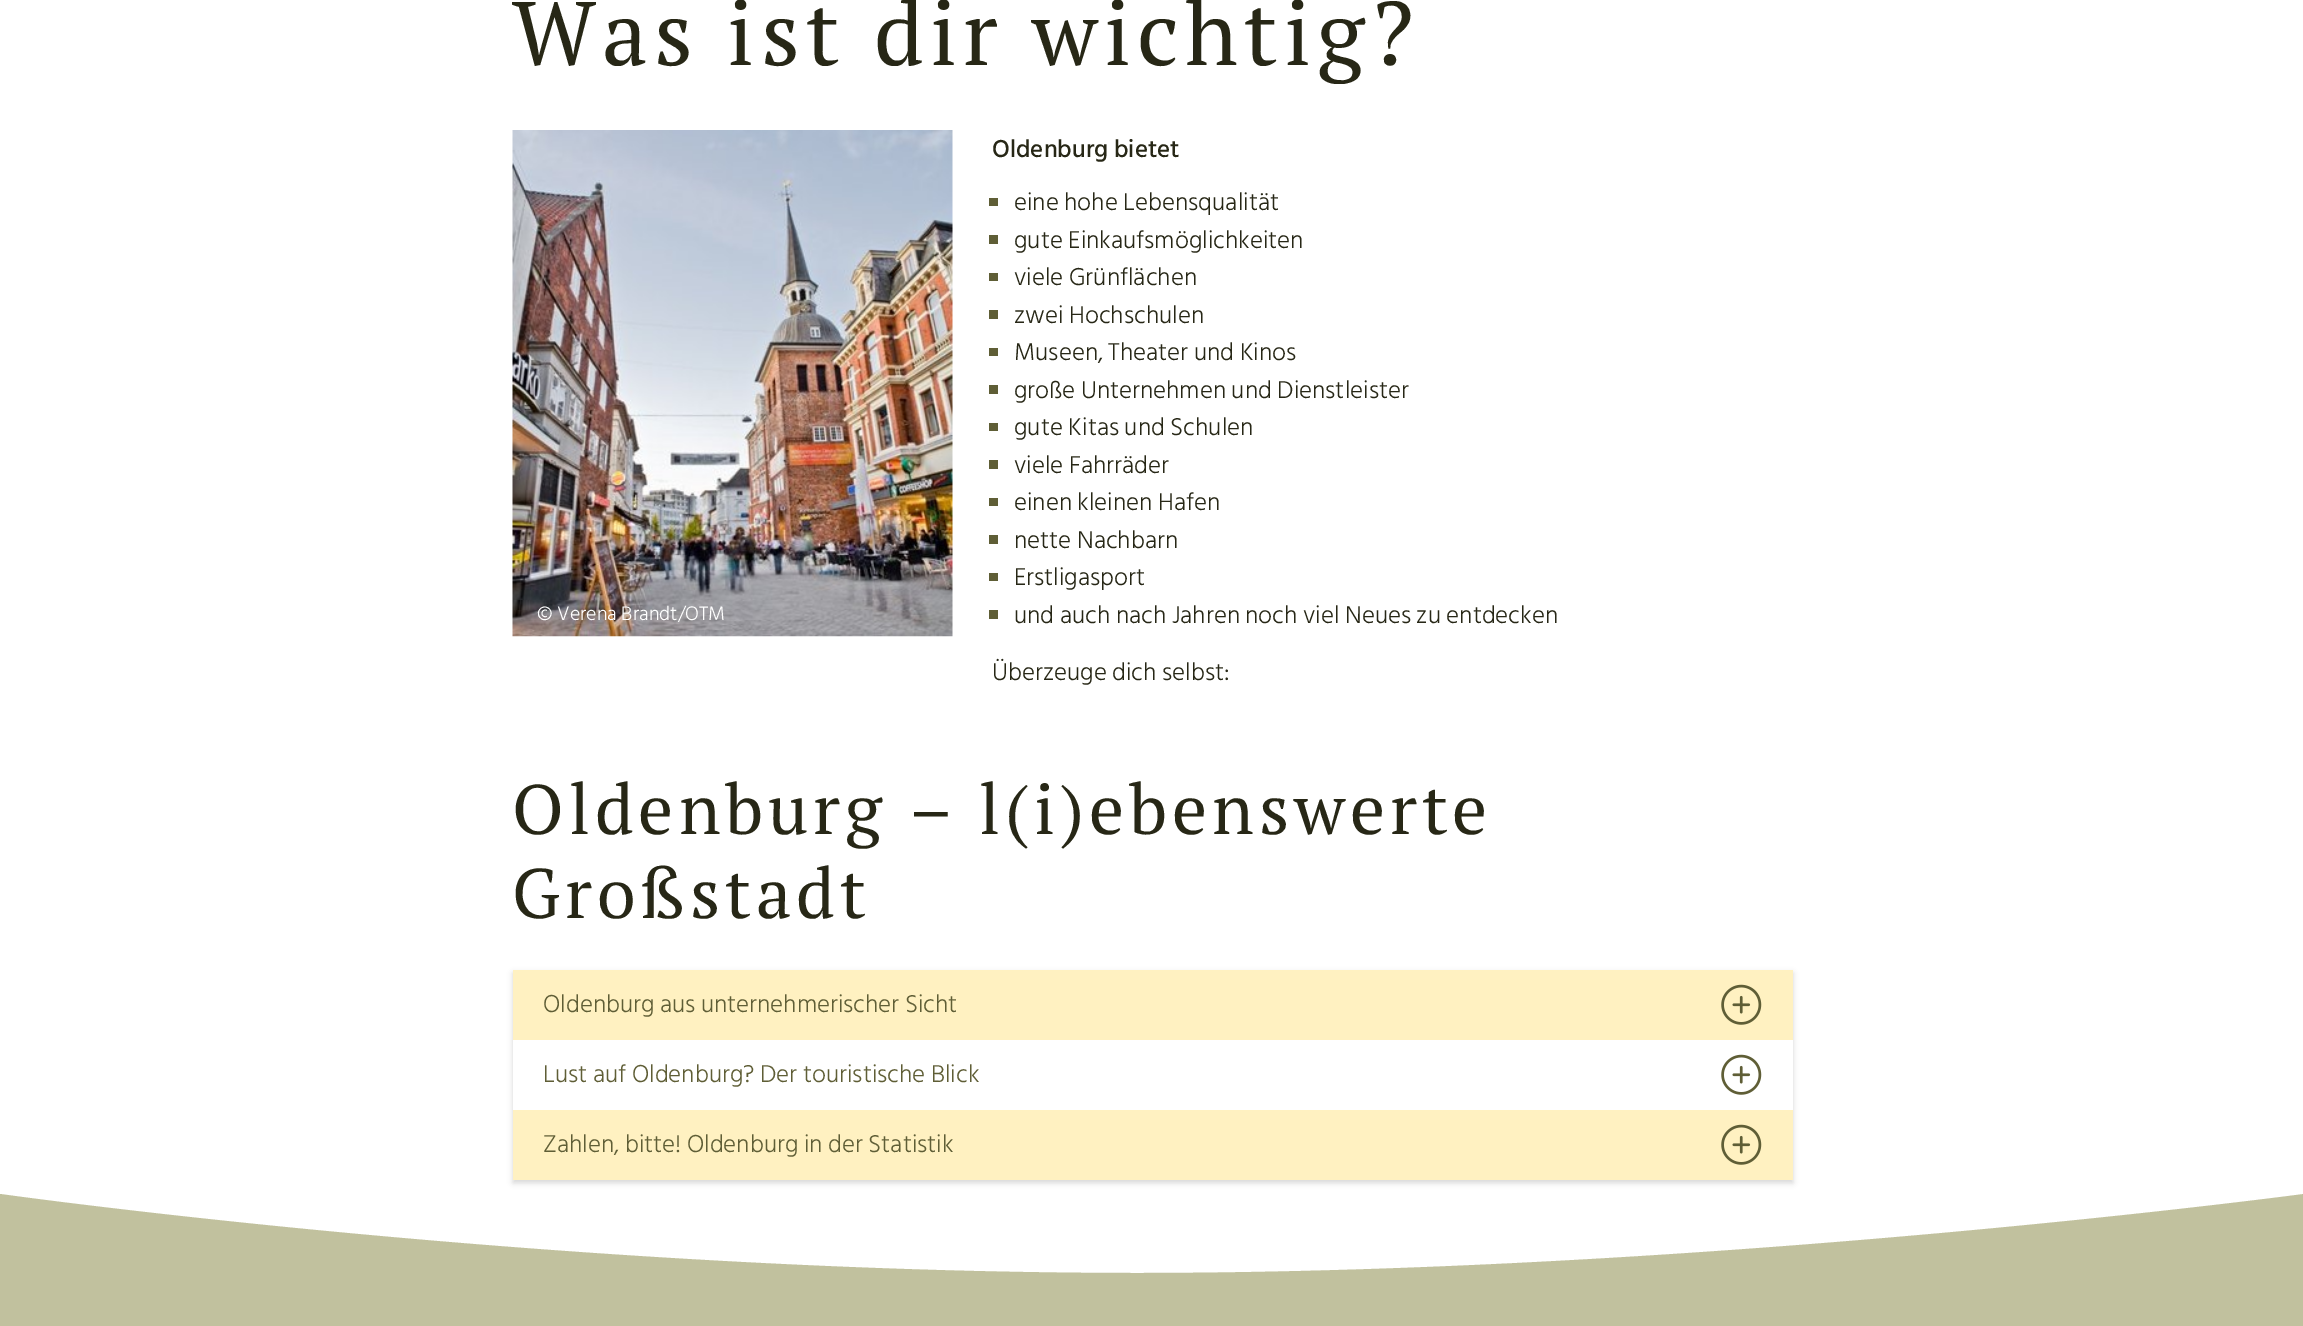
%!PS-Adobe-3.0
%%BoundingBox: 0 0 2303 1326
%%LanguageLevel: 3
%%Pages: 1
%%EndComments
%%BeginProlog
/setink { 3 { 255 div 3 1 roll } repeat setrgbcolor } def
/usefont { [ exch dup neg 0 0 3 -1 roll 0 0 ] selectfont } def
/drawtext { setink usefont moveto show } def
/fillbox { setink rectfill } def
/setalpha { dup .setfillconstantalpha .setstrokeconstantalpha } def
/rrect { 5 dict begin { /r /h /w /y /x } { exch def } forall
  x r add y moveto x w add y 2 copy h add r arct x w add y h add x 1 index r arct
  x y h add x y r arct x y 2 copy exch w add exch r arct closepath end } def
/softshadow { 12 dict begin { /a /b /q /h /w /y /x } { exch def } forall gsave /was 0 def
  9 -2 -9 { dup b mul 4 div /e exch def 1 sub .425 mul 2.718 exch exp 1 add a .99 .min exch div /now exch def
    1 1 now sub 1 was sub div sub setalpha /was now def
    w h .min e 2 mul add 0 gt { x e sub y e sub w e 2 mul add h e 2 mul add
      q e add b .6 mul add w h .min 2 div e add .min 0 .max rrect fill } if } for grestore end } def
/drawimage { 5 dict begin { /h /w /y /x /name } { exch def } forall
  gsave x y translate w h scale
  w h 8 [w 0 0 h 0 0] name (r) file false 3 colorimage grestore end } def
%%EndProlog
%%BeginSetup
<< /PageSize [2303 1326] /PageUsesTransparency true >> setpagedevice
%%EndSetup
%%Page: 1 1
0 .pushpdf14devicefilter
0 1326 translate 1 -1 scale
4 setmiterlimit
0 0 2303 1326 255 255 255 fillbox
/PTSerif-Regular 90 usefont
39 39 22 setink
512 65 moveto 6.25 0 (Was ist dir wichtig?) ashow
(assets/img1.rgb) 512 130 441 507 drawimage
(© Verena Brandt/OTM) 537 620 /HindSiliguri-Light 20 255 255 255 drawtext
(Oldenburg bietet) 992 157 /HindSiliguri-Medium 25 39 39 22 drawtext
989 198 9 8 95 94 54 fillbox
(eine hohe Lebensqualität) 1014 210 /HindSiliguri-Light 25 39 39 22 drawtext
989 235 9 9 95 94 54 fillbox
(gute Einkaufsmöglichkeiten) 1014 248 /HindSiliguri-Light 25 39 39 22 drawtext
989 273 9 8 95 94 54 fillbox
(viele Grünflächen) 1014 285 /HindSiliguri-Light 25 39 39 22 drawtext
989 310 9 9 95 94 54 fillbox
(zwei Hochschulen) 1014 323 /HindSiliguri-Light 25 39 39 22 drawtext
989 348 9 8 95 94 54 fillbox
(Museen, Theater und Kinos) 1014 360 /HindSiliguri-Light 25 39 39 22 drawtext
989 385 9 9 95 94 54 fillbox
(große Unternehmen und Dienstleister) 1014 398 /HindSiliguri-Light 25 39 39 22 drawtext
989 423 9 8 95 94 54 fillbox
(gute Kitas und Schulen) 1014 435 /HindSiliguri-Light 25 39 39 22 drawtext
989 460 9 9 95 94 54 fillbox
(viele Fahrräder) 1014 473 /HindSiliguri-Light 25 39 39 22 drawtext
989 498 9 8 95 94 54 fillbox
(einen kleinen Hafen) 1014 510 /HindSiliguri-Light 25 39 39 22 drawtext
989 535 9 9 95 94 54 fillbox
(nette Nachbarn) 1014 548 /HindSiliguri-Light 25 39 39 22 drawtext
989 573 9 8 95 94 54 fillbox
(Erstligasport) 1014 585 /HindSiliguri-Light 25 39 39 22 drawtext
989 610 9 9 95 94 54 fillbox
(und auch nach Jahren noch viel Neues zu entdecken) 1014 623 /HindSiliguri-Light 25 39 39 22 drawtext
(Überzeuge dich selbst:) 992 680 /HindSiliguri-Light 25 39 39 22 drawtext
/PTSerif-Regular 70 usefont
512 834 moveto 4.9 0 (Oldenburg – l\(i\)ebenswerte) ashow
512 918 moveto 4.9 0 (Großstadt) ashow
0 0 0 setink
513 973 1280 210 0 3 0.16 softshadow
513 970 1280 70 255 241 193 fillbox
(Oldenburg aus unternehmerischer Sicht) 543 1012 /HindSiliguri-Light 25 95 94 54 drawtext
(assets/img2.rgb) 1721 984 41 41 drawimage
513 1040 1280 70 255 255 255 fillbox
(Lust auf Oldenburg? Der touristische Blick) 543 1082 /HindSiliguri-Light 25 95 94 54 drawtext
(assets/img3.rgb) 1721 1054 41 41 drawimage
513 1110 1280 70 255 241 193 fillbox
(Zahlen, bitte! Oldenburg in der Statistik) 543 1152 /HindSiliguri-Light 25 95 94 54 drawtext
(assets/img2.rgb) 1721 1124 41 41 drawimage
193 193 158 setink
1137 1273 moveto 561 1273 0 1194 0 1194 curveto 0 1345 lineto 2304 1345 lineto 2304 1194 lineto 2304 1194 1713 1273 1137 1273 curveto closepath fill
.poppdf14devicefilter showpage
%%EOF
